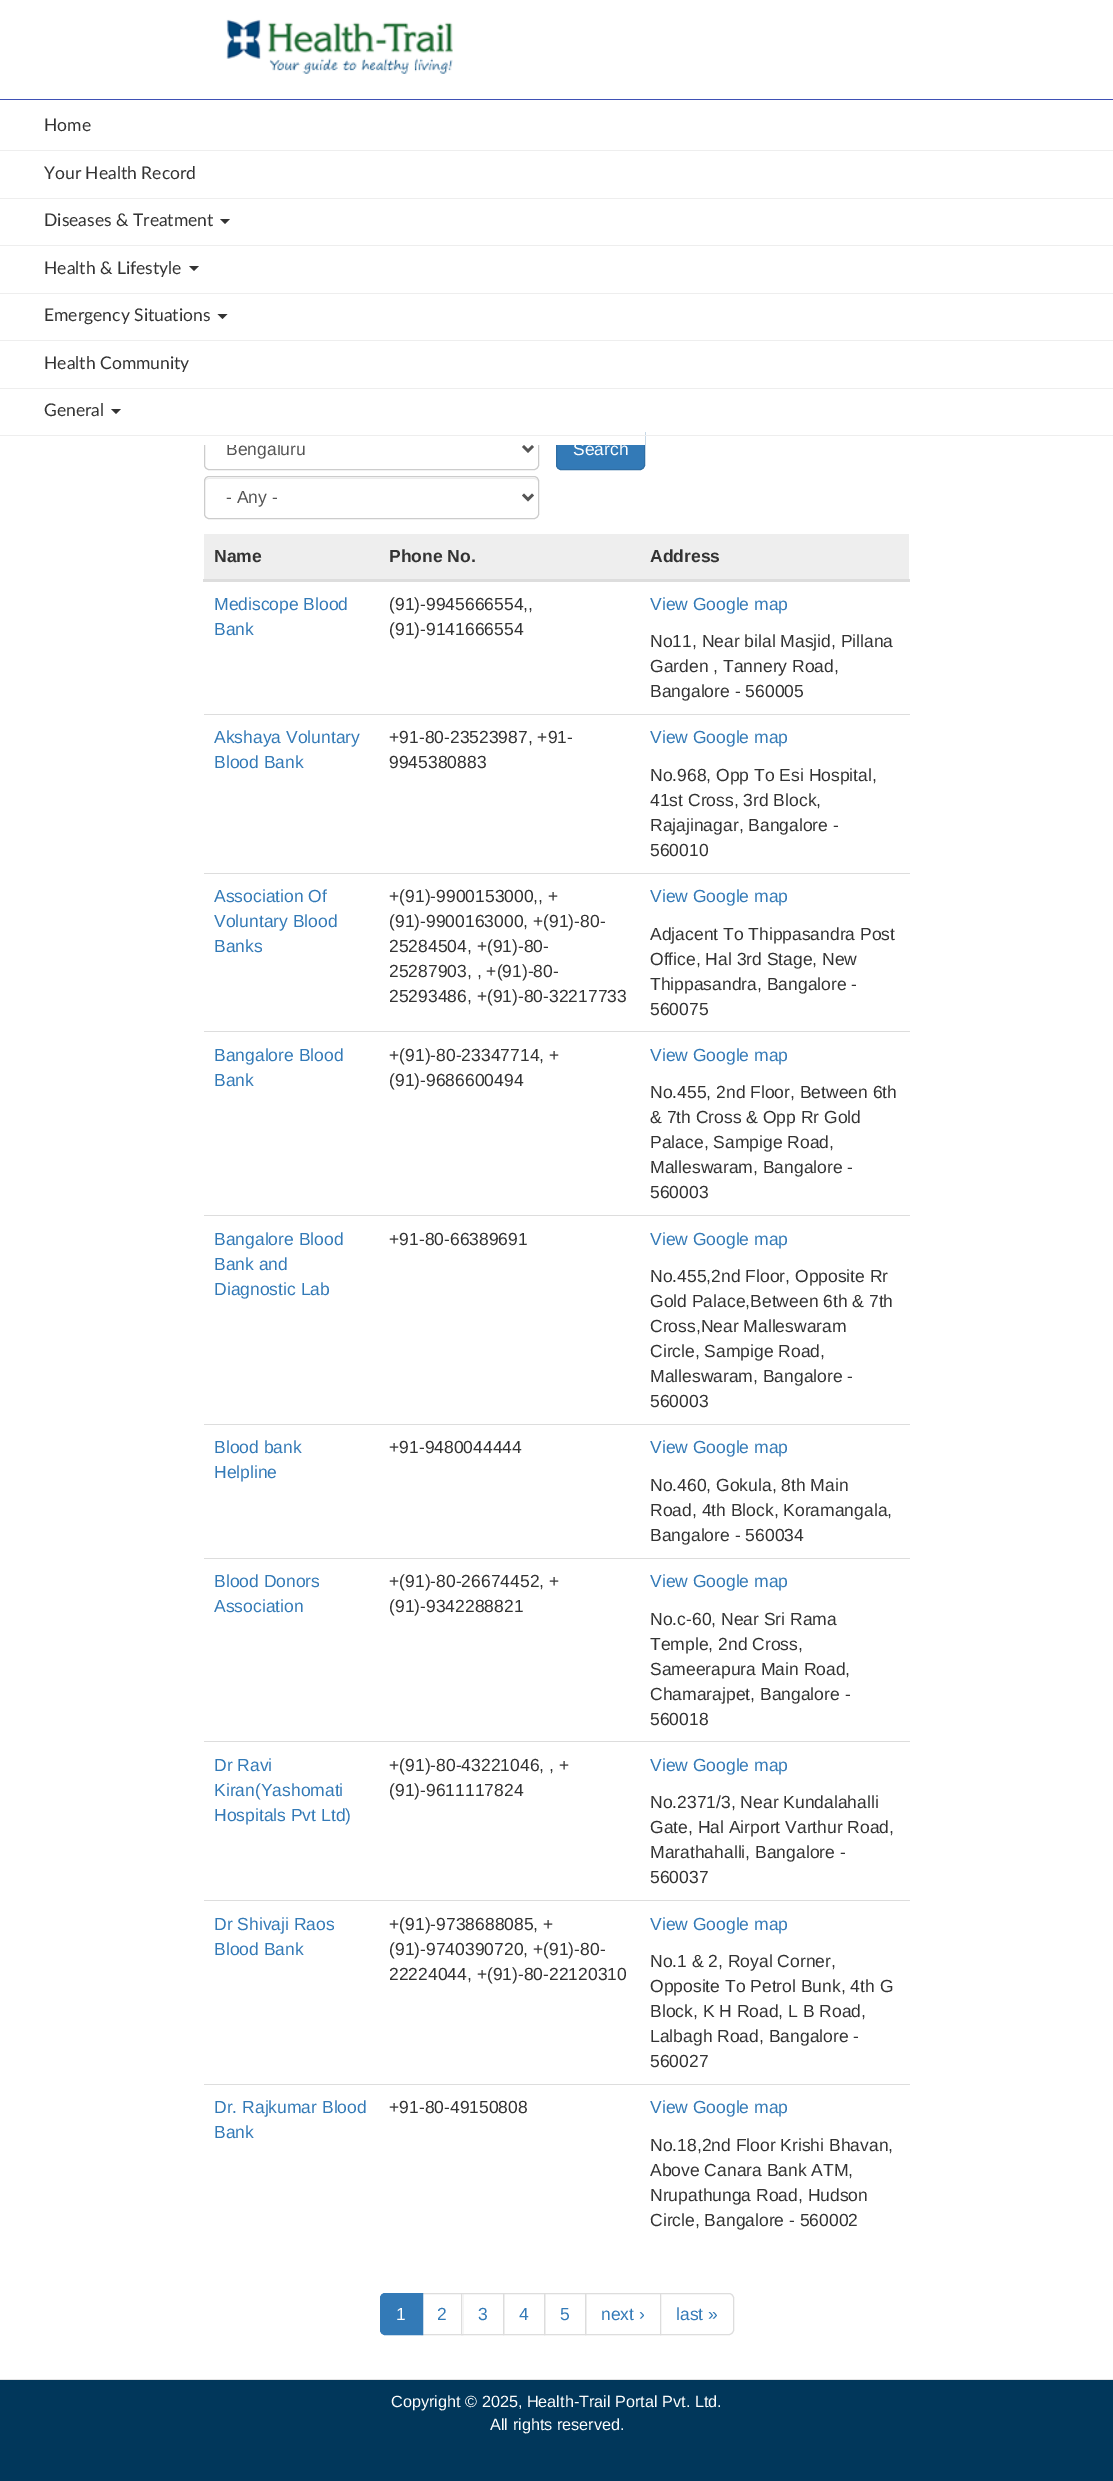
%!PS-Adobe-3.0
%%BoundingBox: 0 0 1113 2481
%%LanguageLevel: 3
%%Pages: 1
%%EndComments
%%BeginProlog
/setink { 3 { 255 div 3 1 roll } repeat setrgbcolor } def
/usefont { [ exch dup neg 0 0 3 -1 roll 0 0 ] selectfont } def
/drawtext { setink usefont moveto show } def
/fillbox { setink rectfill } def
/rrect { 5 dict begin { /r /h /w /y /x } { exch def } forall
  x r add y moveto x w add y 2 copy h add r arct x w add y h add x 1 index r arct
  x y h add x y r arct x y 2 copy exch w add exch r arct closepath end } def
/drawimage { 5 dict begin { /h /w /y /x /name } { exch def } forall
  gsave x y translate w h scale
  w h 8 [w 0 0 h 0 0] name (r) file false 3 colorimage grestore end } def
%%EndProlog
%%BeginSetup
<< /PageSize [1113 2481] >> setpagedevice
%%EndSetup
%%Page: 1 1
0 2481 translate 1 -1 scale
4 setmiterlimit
0 0 1113 2481 255 255 255 fillbox
0 99 1113 1 63 81 181 fillbox
(assets/img1.rgb) 226 19 227 55 drawimage
204 204 204 setink
204.5 428.5 334 41 4.5 rrect stroke
(Bengaluru) 226 455 /LiberationSans-Regular 17.5 85 85 85 drawtext
51 122 183 setink
556.5 428.5 88 41 4.5 rrect gsave fill grestore
46 109 164 setink
stroke
204 428 441 17 255 255 255 fillbox
0 150 1113 1 238 238 238 fillbox
(Home) 44 131 /Lato-Regular 17.5 51 51 51 drawtext
0 198 1113 1 238 238 238 fillbox
(Your Health Record) 44 179 /Lato-Regular 17.5 51 51 51 drawtext
0 245 1113 1 238 238 238 fillbox
(Diseases & Treatment) 44 226 /Lato-Regular 17.5 51 51 51 drawtext
220 219 moveto 230 219 lineto 225 224 lineto closepath fill
0 293 1113 1 238 238 238 fillbox
(Health & Lifestyle) 44 274 /Lato-Regular 17.5 51 51 51 drawtext
189 266 moveto 199 266 lineto 194 271 lineto closepath fill
0 340 1113 1 238 238 238 fillbox
(Emergency Situations) 44 321 /Lato-Regular 17.5 51 51 51 drawtext
217.5 314 moveto 227.5 314 lineto 222.5 319 lineto closepath fill
0 388 1113 1 238 238 238 fillbox
(Health Community) 44 369 /Lato-Regular 17.5 51 51 51 drawtext
0 435 1113 1 238 238 238 fillbox
(General) 44 416 /Lato-Regular 17.5 51 51 51 drawtext
111 409 moveto 121 409 lineto 116 414 lineto closepath fill
85 85 85 setink
2.5 setlinewidth
523 446 moveto 528 451 lineto 533 446 lineto stroke
236 236 236 setink
209 479 moveto 534 479 lineto 536 479 538 480 538 482 curveto 538 480 536 478 534 478 curveto 209 478 lineto 207 478 205 480 205 482 curveto 205 480 207 479 209 479 curveto closepath fill
204 204 204 setink
1 setlinewidth
204.5 476.5 334 42 4.5 rrect stroke
85 85 85 setink
2.5 setlinewidth
523 494.5 moveto 528 499.5 lineto 533 494.5 lineto stroke
(- Any -) 226 503 /LiberationSans-Regular 17.5 85 85 85 drawtext
(Search) 573 455 /LiberationSans-Regular 17.5 255 255 255 drawtext
204 534 705 45 238 238 238 fillbox
(Name) 214 562 /LiberationSans-Bold 17.5 51 51 51 drawtext
(Phone No.) 389 562 /LiberationSans-Bold 17.5 51 51 51 drawtext
203 579 707 3 221 221 221 fillbox
(Address) 650 562 /LiberationSans-Bold 17.5 51 51 51 drawtext
(Mediscope Blood) 214 610 /LiberationSans-Regular 17.5 51 122 183 drawtext
(Bank) 214 635 /LiberationSans-Regular 17.5 51 122 183 drawtext
(\(91\)-9945666554,,) 389 610 /LiberationSans-Regular 17.5 51 51 51 drawtext
(\(91\)-9141666554) 389 635 /LiberationSans-Regular 17.5 51 51 51 drawtext
(View Google map) 650 610 /LiberationSans-Regular 17.5 51 122 183 drawtext
(No11, Near bilal Masjid, Pillana) 650 647 /LiberationSans-Regular 17.5 51 51 51 drawtext
(Garden , Tannery Road,) 650 672 /LiberationSans-Regular 17.5 51 51 51 drawtext
(Bangalore - 560005) 650 697 /LiberationSans-Regular 17.5 51 51 51 drawtext
(Akshaya Voluntary) 214 743 /LiberationSans-Regular 17.5 51 122 183 drawtext
(Blood Bank) 214 768 /LiberationSans-Regular 17.5 51 122 183 drawtext
(+91-80-23523987, +91-) 389 743 /LiberationSans-Regular 17.5 51 51 51 drawtext
(9945380883) 389 768 /LiberationSans-Regular 17.5 51 51 51 drawtext
204 714 706 1 221 221 221 fillbox
(View Google map) 650 743 /LiberationSans-Regular 17.5 51 122 183 drawtext
(No.968, Opp To Esi Hospital,) 650 781 /LiberationSans-Regular 17.5 51 51 51 drawtext
(41st Cross, 3rd Block,) 650 806 /LiberationSans-Regular 17.5 51 51 51 drawtext
(Rajajinagar, Bangalore -) 650 831 /LiberationSans-Regular 17.5 51 51 51 drawtext
(560010) 650 856 /LiberationSans-Regular 17.5 51 51 51 drawtext
(Association Of) 214 902 /LiberationSans-Regular 17.5 51 122 183 drawtext
(Voluntary Blood) 214 927 /LiberationSans-Regular 17.5 51 122 183 drawtext
(Banks) 214 952 /LiberationSans-Regular 17.5 51 122 183 drawtext
(+\(91\)-9900153000,, +) 389 902 /LiberationSans-Regular 17.5 51 51 51 drawtext
(\(91\)-9900163000, +\(91\)-80-) 389 927 /LiberationSans-Regular 17.5 51 51 51 drawtext
(25284504, +\(91\)-80-) 389 952 /LiberationSans-Regular 17.5 51 51 51 drawtext
(25287903, , +\(91\)-80-) 389 977 /LiberationSans-Regular 17.5 51 51 51 drawtext
(25293486, +\(91\)-80-32217733) 389 1002 /LiberationSans-Regular 17.5 51 51 51 drawtext
204 873 706 1 221 221 221 fillbox
(View Google map) 650 902 /LiberationSans-Regular 17.5 51 122 183 drawtext
(Adjacent To Thippasandra Post) 650 940 /LiberationSans-Regular 17.5 51 51 51 drawtext
(Office, Hal 3rd Stage, New) 650 965 /LiberationSans-Regular 17.5 51 51 51 drawtext
(Thippasandra, Bangalore -) 650 990 /LiberationSans-Regular 17.5 51 51 51 drawtext
(560075) 650 1015 /LiberationSans-Regular 17.5 51 51 51 drawtext
(Bangalore Blood) 214 1061 /LiberationSans-Regular 17.5 51 122 183 drawtext
(Bank) 214 1086 /LiberationSans-Regular 17.5 51 122 183 drawtext
(+\(91\)-80-23347714, +) 389 1061 /LiberationSans-Regular 17.5 51 51 51 drawtext
(\(91\)-9686600494) 389 1086 /LiberationSans-Regular 17.5 51 51 51 drawtext
204 1031 706 1 221 221 221 fillbox
(View Google map) 650 1061 /LiberationSans-Regular 17.5 51 122 183 drawtext
(No.455, 2nd Floor, Between 6th) 650 1098 /LiberationSans-Regular 17.5 51 51 51 drawtext
(& 7th Cross & Opp Rr Gold) 650 1123 /LiberationSans-Regular 17.5 51 51 51 drawtext
(Palace, Sampige Road,) 650 1148 /LiberationSans-Regular 17.5 51 51 51 drawtext
(Malleswaram, Bangalore -) 650 1173 /LiberationSans-Regular 17.5 51 51 51 drawtext
(560003) 650 1198 /LiberationSans-Regular 17.5 51 51 51 drawtext
(Bangalore Blood) 214 1245 /LiberationSans-Regular 17.5 51 122 183 drawtext
(Bank and) 214 1270 /LiberationSans-Regular 17.5 51 122 183 drawtext
(Diagnostic Lab) 214 1295 /LiberationSans-Regular 17.5 51 122 183 drawtext
(+91-80-66389691) 389 1245 /LiberationSans-Regular 17.5 51 51 51 drawtext
204 1215 706 1 221 221 221 fillbox
(View Google map) 650 1245 /LiberationSans-Regular 17.5 51 122 183 drawtext
(No.455,2nd Floor, Opposite Rr) 650 1282 /LiberationSans-Regular 17.5 51 51 51 drawtext
(Gold Palace,Between 6th & 7th) 650 1307 /LiberationSans-Regular 17.5 51 51 51 drawtext
(Cross,Near Malleswaram) 650 1332 /LiberationSans-Regular 17.5 51 51 51 drawtext
(Circle, Sampige Road,) 650 1357 /LiberationSans-Regular 17.5 51 51 51 drawtext
(Malleswaram, Bangalore -) 650 1382 /LiberationSans-Regular 17.5 51 51 51 drawtext
(560003) 650 1407 /LiberationSans-Regular 17.5 51 51 51 drawtext
(Blood bank) 214 1453 /LiberationSans-Regular 17.5 51 122 183 drawtext
(Helpline) 214 1478 /LiberationSans-Regular 17.5 51 122 183 drawtext
(+91-9480044444) 389 1453 /LiberationSans-Regular 17.5 51 51 51 drawtext
204 1424 706 1 221 221 221 fillbox
(View Google map) 650 1453 /LiberationSans-Regular 17.5 51 122 183 drawtext
(No.460, Gokula, 8th Main) 650 1491 /LiberationSans-Regular 17.5 51 51 51 drawtext
(Road, 4th Block, Koramangala,) 650 1516 /LiberationSans-Regular 17.5 51 51 51 drawtext
(Bangalore - 560034) 650 1541 /LiberationSans-Regular 17.5 51 51 51 drawtext
(Blood Donors) 214 1587 /LiberationSans-Regular 17.5 51 122 183 drawtext
(Association) 214 1612 /LiberationSans-Regular 17.5 51 122 183 drawtext
(+\(91\)-80-26674452, +) 389 1587 /LiberationSans-Regular 17.5 51 51 51 drawtext
(\(91\)-9342288821) 389 1612 /LiberationSans-Regular 17.5 51 51 51 drawtext
204 1558 706 1 221 221 221 fillbox
(View Google map) 650 1587 /LiberationSans-Regular 17.5 51 122 183 drawtext
(No.c-60, Near Sri Rama) 650 1625 /LiberationSans-Regular 17.5 51 51 51 drawtext
(Temple, 2nd Cross,) 650 1650 /LiberationSans-Regular 17.5 51 51 51 drawtext
(Sameerapura Main Road,) 650 1675 /LiberationSans-Regular 17.5 51 51 51 drawtext
(Chamarajpet, Bangalore -) 650 1700 /LiberationSans-Regular 17.5 51 51 51 drawtext
(560018) 650 1725 /LiberationSans-Regular 17.5 51 51 51 drawtext
(Dr Ravi) 214 1771 /LiberationSans-Regular 17.5 51 122 183 drawtext
(Kiran\(Yashomati) 214 1796 /LiberationSans-Regular 17.5 51 122 183 drawtext
(Hospitals Pvt Ltd\)) 214 1821 /LiberationSans-Regular 17.5 51 122 183 drawtext
(+\(91\)-80-43221046, , +) 389 1771 /LiberationSans-Regular 17.5 51 51 51 drawtext
(\(91\)-9611117824) 389 1796 /LiberationSans-Regular 17.5 51 51 51 drawtext
204 1741 706 1 221 221 221 fillbox
(View Google map) 650 1771 /LiberationSans-Regular 17.5 51 122 183 drawtext
(No.2371/3, Near Kundalahalli) 650 1808 /LiberationSans-Regular 17.5 51 51 51 drawtext
(Gate, Hal Airport Varthur Road,) 650 1833 /LiberationSans-Regular 17.5 51 51 51 drawtext
(Marathahalli, Bangalore -) 650 1858 /LiberationSans-Regular 17.5 51 51 51 drawtext
(560037) 650 1883 /LiberationSans-Regular 17.5 51 51 51 drawtext
(Dr Shivaji Raos) 214 1930 /LiberationSans-Regular 17.5 51 122 183 drawtext
(Blood Bank) 214 1955 /LiberationSans-Regular 17.5 51 122 183 drawtext
(+\(91\)-9738688085, +) 389 1930 /LiberationSans-Regular 17.5 51 51 51 drawtext
(\(91\)-9740390720, +\(91\)-80-) 389 1955 /LiberationSans-Regular 17.5 51 51 51 drawtext
(22224044, +\(91\)-80-22120310) 389 1980 /LiberationSans-Regular 17.5 51 51 51 drawtext
204 1900 706 1 221 221 221 fillbox
(View Google map) 650 1930 /LiberationSans-Regular 17.5 51 122 183 drawtext
(No.1 & 2, Royal Corner,) 650 1967 /LiberationSans-Regular 17.5 51 51 51 drawtext
(Opposite To Petrol Bunk, 4th G) 650 1992 /LiberationSans-Regular 17.5 51 51 51 drawtext
(Block, K H Road, L B Road,) 650 2017 /LiberationSans-Regular 17.5 51 51 51 drawtext
(Lalbagh Road, Bangalore -) 650 2042 /LiberationSans-Regular 17.5 51 51 51 drawtext
(560027) 650 2067 /LiberationSans-Regular 17.5 51 51 51 drawtext
(Dr. Rajkumar Blood) 214 2113 /LiberationSans-Regular 17.5 51 122 183 drawtext
(Bank) 214 2138 /LiberationSans-Regular 17.5 51 122 183 drawtext
(+91-80-49150808) 389 2113 /LiberationSans-Regular 17.5 51 51 51 drawtext
204 2084 706 1 221 221 221 fillbox
(View Google map) 650 2113 /LiberationSans-Regular 17.5 51 122 183 drawtext
(No.18,2nd Floor Krishi Bhavan,) 650 2151 /LiberationSans-Regular 17.5 51 51 51 drawtext
(Above Canara Bank ATM,) 650 2176 /LiberationSans-Regular 17.5 51 51 51 drawtext
(Nrupathunga Road, Hudson) 650 2201 /LiberationSans-Regular 17.5 51 51 51 drawtext
(Circle, Bangalore - 560002) 650 2226 /LiberationSans-Regular 17.5 51 51 51 drawtext
221 221 221 setink
1 setlinewidth
421.5 2293.5 41 41 rectstroke
51 122 183 setink
385 2293.5 moveto 422.5 2293.5 lineto 422.5 2334.5 lineto 385 2334.5 lineto 382.5 2334.5 380.5 2332.5 380.5 2330 curveto 380.5 2298 lineto 380.5 2295.5 382.5 2293.5 385 2293.5 curveto closepath gsave fill grestore
stroke
(1) 396 2320 /LiberationSans-Regular 17.5 255 255 255 drawtext
(2) 437 2320 /LiberationSans-Regular 17.5 51 122 183 drawtext
462 2294 1 40 255 255 255 fillbox
221 221 221 setink
461.5 2293.5 42 41 rectstroke
(3) 478 2320 /LiberationSans-Regular 17.5 51 122 183 drawtext
221 221 221 setink
503.5 2293.5 41 41 rectstroke
(4) 519 2320 /LiberationSans-Regular 17.5 51 122 183 drawtext
221 221 221 setink
544.5 2293.5 41 41 rectstroke
(5) 560 2320 /LiberationSans-Regular 17.5 51 122 183 drawtext
221 221 221 setink
585.5 2293.5 75 41 rectstroke
(next ›) 601 2320 /LiberationSans-Regular 17.5 51 122 183 drawtext
255 255 255 setink
660.5 2293.5 moveto 729 2293.5 lineto 731.5 2293.5 733.5 2295.5 733.5 2298 curveto 733.5 2330 lineto 733.5 2332.5 731.5 2334.5 729 2334.5 curveto 660.5 2334.5 lineto closepath gsave fill grestore
221 221 221 setink
stroke
(last ») 676 2320 /LiberationSans-Regular 17.5 51 122 183 drawtext
0 2380 1113 101 1 55 91 fillbox
0 2379 1113 1 229 229 229 fillbox
(Copyright © 2025, Health-Trail Portal Pvt. Ltd.) 391 2407 /LiberationSans-Regular 16.25 255 255 255 drawtext
(All rights reserved.) 490 2430 /LiberationSans-Regular 16.25 255 255 255 drawtext
showpage
%%EOF
